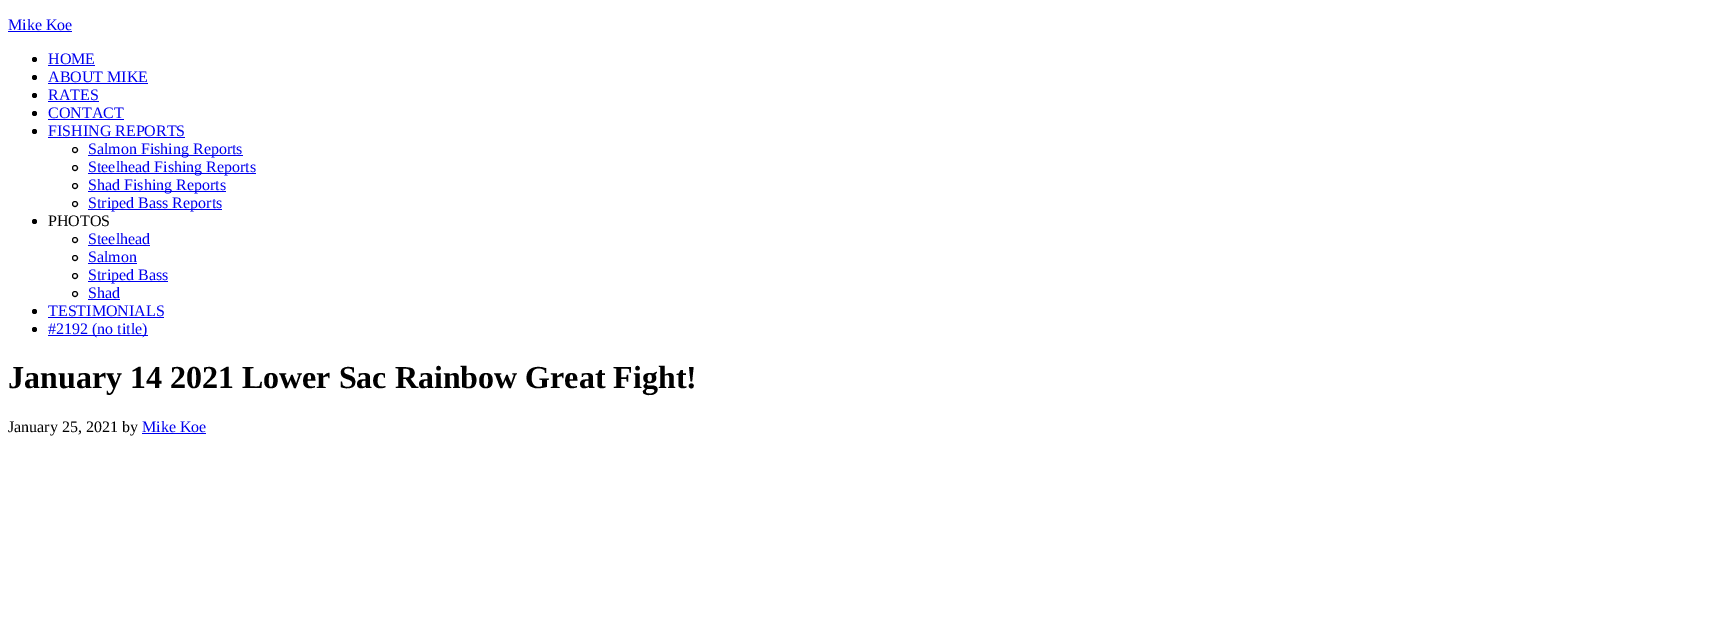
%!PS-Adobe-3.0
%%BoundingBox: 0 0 1713 621
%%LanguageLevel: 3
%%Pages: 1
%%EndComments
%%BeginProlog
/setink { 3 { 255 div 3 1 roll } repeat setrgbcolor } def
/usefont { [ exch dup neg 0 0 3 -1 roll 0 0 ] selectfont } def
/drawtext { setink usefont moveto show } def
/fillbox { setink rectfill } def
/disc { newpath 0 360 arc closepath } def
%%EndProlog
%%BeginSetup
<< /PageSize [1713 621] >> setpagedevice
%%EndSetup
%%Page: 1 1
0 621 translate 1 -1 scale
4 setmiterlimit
0 0 1713 621 255 255 255 fillbox
(Mike Koe) 8 30 /LiberationSerif-Regular 16 0 0 238 drawtext
8 31 64 1 0 0 238 fillbox
0 0 0 setink
34.5 59.5 2.5 disc fill
(HOME) 48 64 /LiberationSerif-Regular 16 0 0 238 drawtext
48 65 47 1 0 0 238 fillbox
0 0 0 setink
34.5 77.5 2.5 disc fill
(ABOUT MIKE) 48 82 /LiberationSerif-Regular 16 0 0 238 drawtext
48 83 100 1 0 0 238 fillbox
0 0 0 setink
34.5 95.5 2.5 disc fill
(RATES) 48 100 /LiberationSerif-Regular 16 0 0 238 drawtext
48 101 51 1 0 0 238 fillbox
0 0 0 setink
34.5 113.5 2.5 disc fill
(CONTACT) 48 118 /LiberationSerif-Regular 16 0 0 238 drawtext
48 119 76 1 0 0 238 fillbox
0 0 0 setink
34.5 131.5 2.5 disc fill
(FISHING REPORTS) 48 136 /LiberationSerif-Regular 16 0 0 238 drawtext
48 137 137 1 0 0 238 fillbox
0 0 0 setink
75 150 2.5 disc stroke
88 155 155 1 0 0 238 fillbox
(Salmon Fishing Reports) 88 154 /LiberationSerif-Regular 16 0 0 238 drawtext
0 0 0 setink
75 168 2.5 disc stroke
88 173 168 1 0 0 238 fillbox
(Steelhead Fishing Reports) 88 172 /LiberationSerif-Regular 16 0 0 238 drawtext
0 0 0 setink
75 186 2.5 disc stroke
88 191 138 1 0 0 238 fillbox
(Shad Fishing Reports) 88 190 /LiberationSerif-Regular 16 0 0 238 drawtext
0 0 0 setink
75 204 2.5 disc stroke
88 209 134 1 0 0 238 fillbox
(Striped Bass Reports) 88 208 /LiberationSerif-Regular 16 0 0 238 drawtext
0 0 0 setink
34.5 221.5 2.5 disc fill
(PHOTOS) 48 226 /LiberationSerif-Regular 16 0 0 0 drawtext
75 240 2.5 disc stroke
(Steelhead) 88 244 /LiberationSerif-Regular 16 0 0 238 drawtext
88 245 62 1 0 0 238 fillbox
0 0 0 setink
75 258 2.5 disc stroke
(Salmon) 88 262 /LiberationSerif-Regular 16 0 0 238 drawtext
88 263 49 1 0 0 238 fillbox
0 0 0 setink
75 276 2.5 disc stroke
88 281 80 1 0 0 238 fillbox
(Striped Bass) 88 280 /LiberationSerif-Regular 16 0 0 238 drawtext
0 0 0 setink
75 294 2.5 disc stroke
(Shad) 88 298 /LiberationSerif-Regular 16 0 0 238 drawtext
88 299 32 1 0 0 238 fillbox
0 0 0 setink
34.5 311.5 2.5 disc fill
(TESTIMONIALS) 48 316 /LiberationSerif-Regular 16 0 0 238 drawtext
48 317 116 1 0 0 238 fillbox
0 0 0 setink
34.5 329.5 2.5 disc fill
48 335 100 1 0 0 238 fillbox
(#2192 \(no title\)) 48 334 /LiberationSerif-Regular 16 0 0 238 drawtext
(January 14 2021 Lower Sac Rainbow Great Fight!) 8 388 /LiberationSerif-Bold 32 0 0 0 drawtext
(January 25, 2021 by) 8 432 /LiberationSerif-Regular 16 0 0 0 drawtext
(Mike Koe) 142 432 /LiberationSerif-Regular 16 0 0 238 drawtext
142 433 64 1 0 0 238 fillbox
showpage
%%EOF
